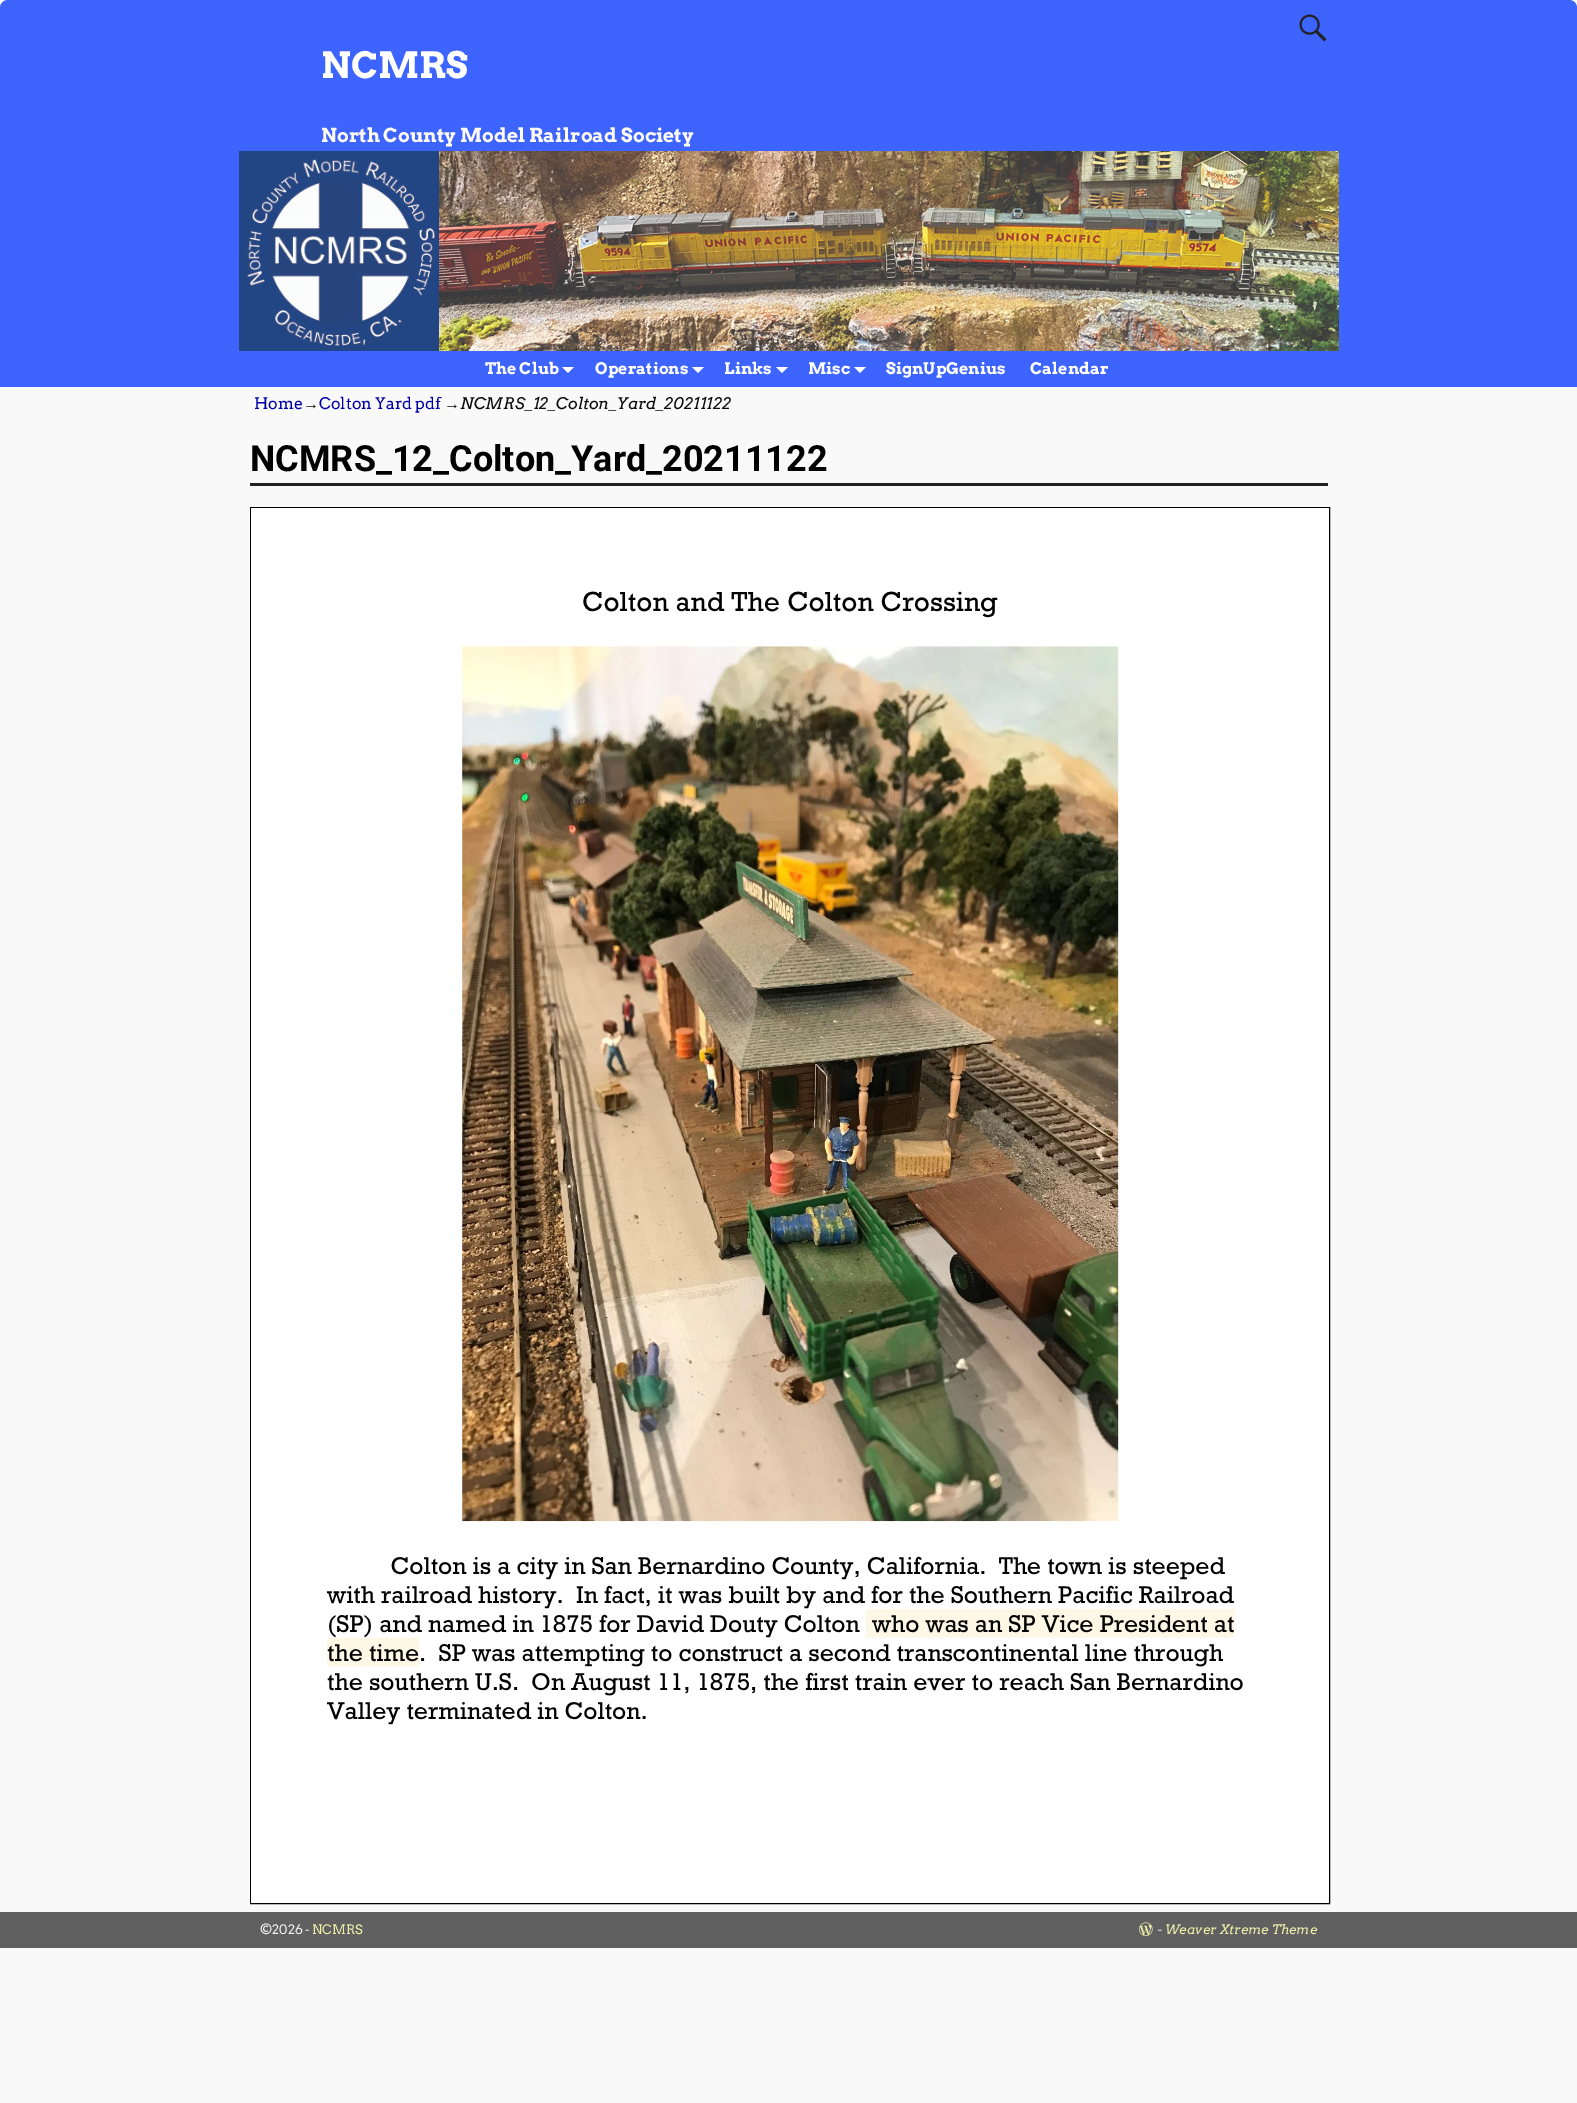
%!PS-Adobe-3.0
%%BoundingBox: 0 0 1577 2103
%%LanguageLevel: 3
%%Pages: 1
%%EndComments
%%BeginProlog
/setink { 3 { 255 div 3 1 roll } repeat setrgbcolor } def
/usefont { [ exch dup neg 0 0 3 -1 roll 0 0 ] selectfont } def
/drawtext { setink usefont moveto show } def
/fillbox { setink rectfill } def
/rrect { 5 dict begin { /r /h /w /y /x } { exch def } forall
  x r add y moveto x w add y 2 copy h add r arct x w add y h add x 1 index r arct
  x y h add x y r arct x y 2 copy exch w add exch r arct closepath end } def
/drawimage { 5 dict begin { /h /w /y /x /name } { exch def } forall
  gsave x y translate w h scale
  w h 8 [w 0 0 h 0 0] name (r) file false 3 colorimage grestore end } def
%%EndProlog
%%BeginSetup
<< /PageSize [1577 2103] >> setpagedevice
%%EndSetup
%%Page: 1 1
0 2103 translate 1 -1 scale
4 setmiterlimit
0 0 1577 2103 249 249 249 fillbox
61 100 255 setink
0 0 1577 387 8 rrect fill
(assets/img1.rgb) 1299 14 28 28 drawimage
(NCMRS) 321 78 /Arvo-Bold 36 255 255 255 drawtext
(North County Model Railroad Society) 321 142 /Arvo-Bold 19.25 255 252 247 drawtext
(assets/img2.rgb) 239 151 1100 200 drawimage
0 379 1577 8 61 100 255 fillbox
(The Club) 485 374 /Arvo-Bold 16 255 255 255 drawtext
562 367 moveto 574 367 lineto 568 373 lineto closepath fill
(Operations) 595 374 /Arvo-Bold 16 255 255 255 drawtext
692 367 moveto 704 367 lineto 698 373 lineto closepath fill
(Links) 724 374 /Arvo-Bold 16 255 255 255 drawtext
776 367 moveto 788 367 lineto 782 373 lineto closepath fill
(Misc) 808 374 /Arvo-Bold 16 255 255 255 drawtext
854 367 moveto 866 367 lineto 860 373 lineto closepath fill
(SignUpGenius) 886 374 /Arvo-Bold 16 255 255 255 drawtext
(Calendar) 1030 374 /Arvo-Bold 16 255 255 255 drawtext
(Home) 254 409 /Arvo-Regular 16 0 0 168 drawtext
(→) 303 409 /LiberationSerif-Regular 16 12 12 12 drawtext
(Colton Yard pdf) 319 409 /Arvo-Regular 16 0 0 168 drawtext
(→) 444 409 /LiberationSerif-Regular 16 12 12 12 drawtext
(NCMRS_12_Colton_Yard_20211122) 460 409 /Arvo-Italic 16 12 12 12 drawtext
250 483 1078 3 34 34 34 fillbox
(NCMRS_12_Colton_Yard_20211122) 250 471 /Roboto-Bold 36 0 0 0 drawtext
250.5 507.5 1079 1396 rectstroke
251 508 1078 1395 255 255 255 fillbox
(assets/img3.rgb) 326 591 917 1134 drawimage
0 1912 1577 36 96 96 96 fillbox
(©2026 -) 260 1934 /Arvo-Regular 13 242 242 242 drawtext
(NCMRS) 312 1934 /Arvo-Regular 13 237 237 170 drawtext
(assets/img4.rgb) 1139 1922 14 14 drawimage
(-) 1157 1934 /Arvo-Italic 13 242 242 242 drawtext
(Weaver Xtreme Theme) 1165 1934 /Arvo-Italic 13 237 237 170 drawtext
showpage
%%EOF
